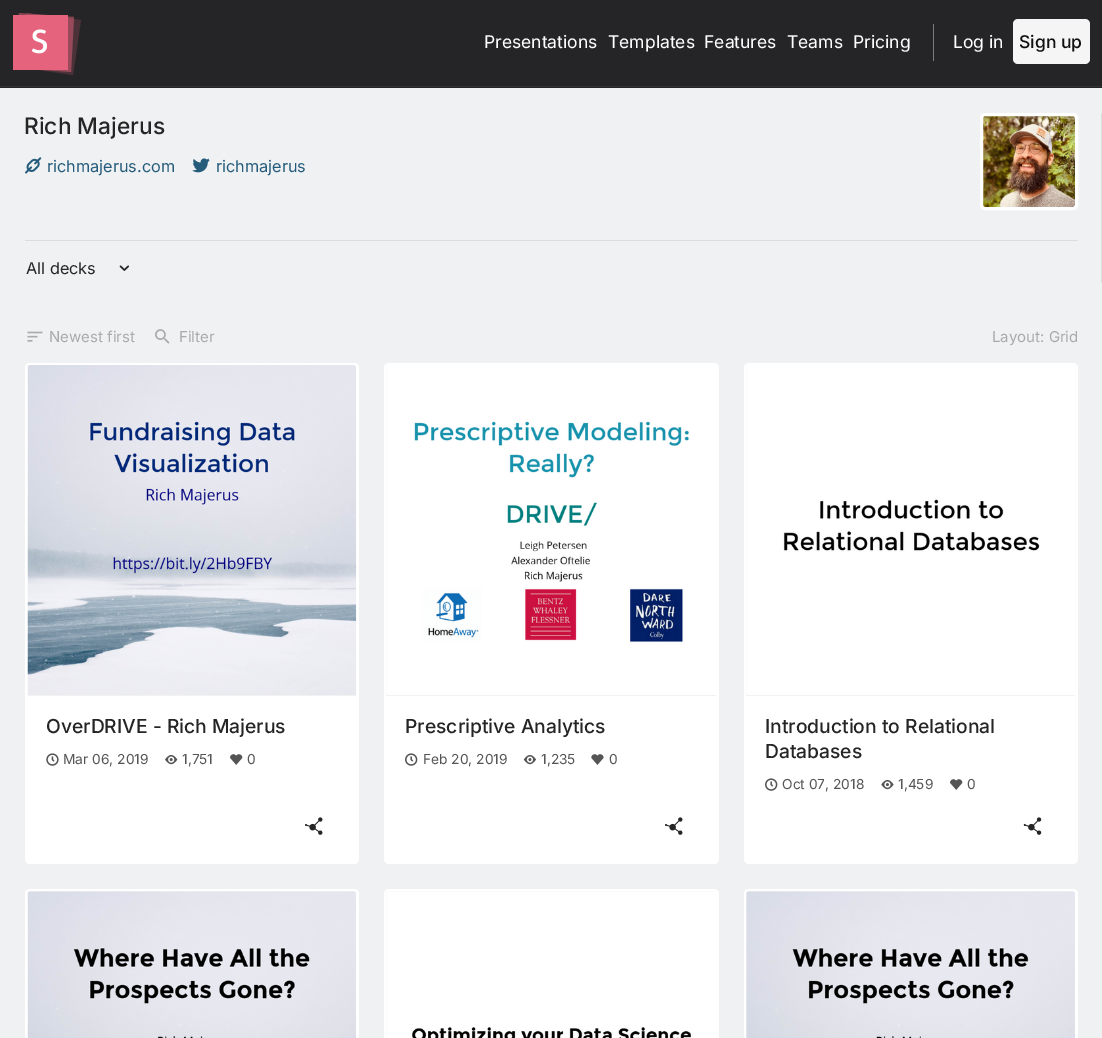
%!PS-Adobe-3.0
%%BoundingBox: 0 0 1102 1038
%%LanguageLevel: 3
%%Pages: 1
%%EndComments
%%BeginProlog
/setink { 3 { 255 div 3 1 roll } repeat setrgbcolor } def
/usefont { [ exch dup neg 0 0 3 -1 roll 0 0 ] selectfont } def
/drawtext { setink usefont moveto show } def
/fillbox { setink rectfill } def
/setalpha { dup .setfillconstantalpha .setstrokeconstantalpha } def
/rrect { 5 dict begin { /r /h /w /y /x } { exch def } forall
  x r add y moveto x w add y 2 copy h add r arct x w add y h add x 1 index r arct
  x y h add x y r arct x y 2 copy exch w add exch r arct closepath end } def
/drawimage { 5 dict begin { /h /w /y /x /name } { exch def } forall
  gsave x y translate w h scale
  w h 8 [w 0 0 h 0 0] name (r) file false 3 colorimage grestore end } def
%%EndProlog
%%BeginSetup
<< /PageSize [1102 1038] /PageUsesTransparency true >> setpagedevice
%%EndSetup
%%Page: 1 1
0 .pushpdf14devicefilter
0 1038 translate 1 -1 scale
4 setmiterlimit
0 0 1102 1038 240 241 242 fillbox
0 0 1102 88 37 37 39 fillbox
0 86 1102 1 51 51 51 fillbox
75 49 56 setink
26 13 moveto 81 20 lineto 73 75 lineto 19 67 lineto closepath fill
0.5 setalpha
229 99 124 setink
19 13 moveto 74 17 lineto 71 72 lineto 16 68 lineto closepath fill
1 setalpha
13 15 55 55 229 99 124 fillbox
(assets/img1.rgb) 32 29 15 25 drawimage
(Presentations) 484 48 /Inter-Regular 17.5 255 255 255 drawtext
(Templates) 608 48 /Inter-Regular 17.5 255 255 255 drawtext
(Features) 704 48 /Inter-Regular 17.5 255 255 255 drawtext
(Teams) 787 48 /Inter-Regular 17.5 255 255 255 drawtext
(Pricing) 853 48 /Inter-Regular 17.5 255 255 255 drawtext
933 24 1 37 124 124 125 fillbox
(Log in) 953 48 /Inter-Regular 17.5 255 255 255 drawtext
245 245 245 setink
1013 19 77 45 5 rrect fill
(Sign up) 1019 48 /Inter-Medium 17.5 17 17 17 drawtext
25 240 1053 1 221 221 221 fillbox
(Rich Majerus) 24 134 /Inter-Medium 22.75 37 37 37 drawtext
(assets/img2.rgb) 25 157 17 17 drawimage
(richmajerus.com) 47 172 /Inter-Regular 16.25 37 92 124 drawtext
(assets/img3.rgb) 192 158 18 15 drawimage
(richmajerus) 216 172 /Inter-Regular 16.25 37 92 124 drawtext
(assets/img4.rgb) 983 116 92 91 drawimage
255 255 255 setink
3 setlinewidth
981.5 114.5 95 94 3.5 rrect stroke
1101 113 1 170 221 221 221 fillbox
(All decks) 26 274 /Inter-Regular 16.25 37 37 37 drawtext
(assets/img5.rgb) 119 265 10 6 drawimage
(assets/img6.rgb) 27 331 16 11 drawimage
(Newest first) 49 342 /Inter-Regular 15 170 170 170 drawtext
(assets/img7.rgb) 155 329 15 15 drawimage
(Filter) 179 342 /Inter-Regular 15 170 170 170 drawtext
(Layout: Grid) 992 342 /Inter-Regular 15 170 170 170 drawtext
255 255 255 setink
25 363 334 501 5 rrect fill
28 695 328 1 242 242 242 fillbox
(assets/img8.rgb) 27 365 330 330 drawimage
(OverDRIVE - Rich Majerus) 46 733 /Inter-Medium 19.25 37 37 37 drawtext
(assets/img9.rgb) 46 753 13 13 drawimage
(Mar 06, 2019) 63 764 /Inter-Regular 13.75 85 85 85 drawtext
(assets/img10.rgb) 165 755 13 10 drawimage
(1,751) 182 764 /Inter-Regular 13.75 85 85 85 drawtext
(assets/img11.rgb) 230 754 13 11 drawimage
(0) 247 764 /Inter-Regular 13.75 85 85 85 drawtext
(assets/img12.rgb) 305 817 18 18 drawimage
255 255 255 setink
384 363 335 501 5 rrect fill
386 695 330 1 242 242 242 fillbox
245 245 245 setink
388.5 365 moveto 713.5 365 lineto 715 365 716 366 716 367.5 curveto 716 695 lineto 386 695 lineto 386 367.5 lineto 386 366 387 365 388.5 365 curveto closepath fill
(assets/img13.rgb) 386 365 330 330 drawimage
(Prescriptive Analytics) 405 733 /Inter-Medium 19.25 37 37 37 drawtext
(assets/img14.rgb) 405 753 13 13 drawimage
(Feb 20, 2019) 423 764 /Inter-Regular 13.75 85 85 85 drawtext
(assets/img15.rgb) 523 755 13 10 drawimage
(1,235) 541 764 /Inter-Regular 13.75 85 85 85 drawtext
(assets/img16.rgb) 591 754 13 11 drawimage
(0) 609 764 /Inter-Regular 13.75 85 85 85 drawtext
(assets/img12.rgb) 665 817 18 18 drawimage
255 255 255 setink
744 363 334 501 5 rrect fill
746 695 329 1 242 242 242 fillbox
245 245 245 setink
748.5 365 moveto 1072.5 365 lineto 1074 365 1075 366 1075 367.5 curveto 1075 695 lineto 746 695 lineto 746 367.5 lineto 746 366 747 365 748.5 365 curveto closepath fill
(assets/img17.rgb) 746 365 329 330 drawimage
(Introduction to Relational) 765 733 /Inter-Medium 19.25 37 37 37 drawtext
(Databases) 765 758 /Inter-Medium 19.25 37 37 37 drawtext
(assets/img14.rgb) 765 778 13 13 drawimage
(Oct 07, 2018) 782 789 /Inter-Regular 13.75 85 85 85 drawtext
(assets/img18.rgb) 881 780 13 10 drawimage
(1,459) 898 789 /Inter-Regular 13.75 85 85 85 drawtext
(assets/img11.rgb) 950 779 13 11 drawimage
(0) 967 789 /Inter-Regular 13.75 85 85 85 drawtext
(assets/img19.rgb) 1023 817 19 18 drawimage
255 255 255 setink
25 889 334 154 5 rrect fill
245 245 245 setink
30.5 891 moveto 353.5 891 lineto 355 891 356 892 356 893.5 curveto 356 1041 lineto 28 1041 lineto 28 893.5 lineto 28 892 29 891 30.5 891 curveto closepath fill
(assets/img20.rgb) 27 891 329 147 drawimage
255 255 255 setink
384 889 335 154 5 rrect fill
245 245 245 setink
388.5 891 moveto 713.5 891 lineto 715 891 716 892 716 893.5 curveto 716 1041 lineto 386 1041 lineto 386 893.5 lineto 386 892 387 891 388.5 891 curveto closepath fill
(assets/img21.rgb) 386 891 330 147 drawimage
255 255 255 setink
744 889 334 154 5 rrect fill
245 245 245 setink
748.5 891 moveto 1072.5 891 lineto 1074 891 1075 892 1075 893.5 curveto 1075 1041 lineto 746 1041 lineto 746 893.5 lineto 746 892 747 891 748.5 891 curveto closepath fill
(assets/img22.rgb) 746 891 329 147 drawimage
.poppdf14devicefilter showpage
%%EOF
